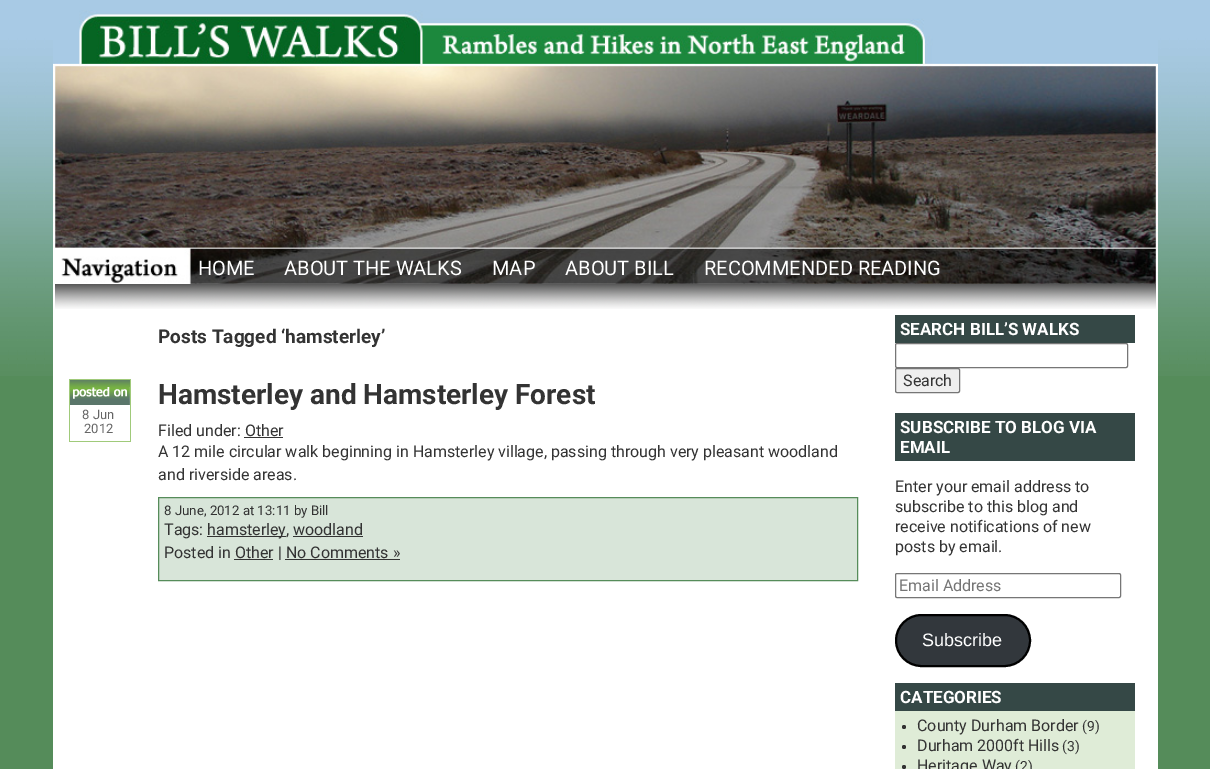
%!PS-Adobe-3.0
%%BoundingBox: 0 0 1210 769
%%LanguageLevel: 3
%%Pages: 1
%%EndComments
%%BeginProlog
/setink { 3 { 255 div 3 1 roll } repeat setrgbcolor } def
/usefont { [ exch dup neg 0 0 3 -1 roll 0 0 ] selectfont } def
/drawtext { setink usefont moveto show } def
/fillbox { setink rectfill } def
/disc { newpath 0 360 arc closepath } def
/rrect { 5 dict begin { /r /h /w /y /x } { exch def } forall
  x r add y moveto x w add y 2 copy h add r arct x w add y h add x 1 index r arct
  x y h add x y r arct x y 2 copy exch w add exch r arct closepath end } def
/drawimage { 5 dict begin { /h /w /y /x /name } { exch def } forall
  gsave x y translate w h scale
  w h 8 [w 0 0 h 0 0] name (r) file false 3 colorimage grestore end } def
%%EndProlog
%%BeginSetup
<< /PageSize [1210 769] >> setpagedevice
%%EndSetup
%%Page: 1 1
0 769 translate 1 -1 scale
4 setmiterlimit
0 0 1210 769 85 140 90 fillbox
(assets/img1.rgb) 0 0 1210 376 drawimage
(assets/img2.rgb) 53 10 1105 274 drawimage
(HOME) 198 275 /Roboto-Regular 20 255 255 255 drawtext
(ABOUT THE WALKS) 284 275 /Roboto-Regular 20 255 255 255 drawtext
(MAP) 492 275 /Roboto-Regular 20 255 255 255 drawtext
(ABOUT BILL) 565 275 /Roboto-Regular 20 255 255 255 drawtext
(RECOMMENDED READING) 704 275 /Roboto-Regular 20 255 255 255 drawtext
53 284 1105 485 255 255 255 fillbox
(assets/img3.rgb) 55 284 1101 25 drawimage
(Posts Tagged ‘hamsterley’) 158 343 /Roboto-Bold 19 51 51 51 drawtext
(assets/img4.rgb) 69 379 62 63 drawimage
(8 Jun) 82 419 /Roboto-Regular 13 102 102 102 drawtext
(2012) 84 433 /Roboto-Regular 13 102 102 102 drawtext
(Hamsterley and Hamsterley Forest) 158 404 /Roboto-Bold 28 51 51 51 drawtext
(Filed under: Other) 158 436 /Roboto-Regular 16 51 51 51 drawtext
244 437 39 1 51 51 51 fillbox
(A 12 mile circular walk beginning in Hamsterley village, passing through very pleasant woodland) 158 457 /Roboto-Regular 16 51 51 51 drawtext
(and riverside areas.) 158 480 /Roboto-Regular 16 51 51 51 drawtext
216 229 217 setink
158.5 497.5 moveto 857.5 497.5 lineto 857.5 580.5 lineto 158.5 580.5 lineto closepath gsave fill grestore
86 140 90 setink
stroke
(8 June, 2012 at 13:11 by Bill) 164 515 /Roboto-Regular 13.25 51 51 51 drawtext
(Tags:) 164 535 /Roboto-Regular 16 51 51 51 drawtext
207 536 79 1 51 51 51 fillbox
(hamsterley, woodland) 207 535 /Roboto-Regular 16 51 51 51 drawtext
293 536 70 1 51 51 51 fillbox
(Posted in Other | No Comments ») 164 558 /Roboto-Regular 16 51 51 51 drawtext
234 559 39 1 51 51 51 fillbox
285 559 115 1 51 51 51 fillbox
895 315 240 28 53 72 70 fillbox
(SEARCH BILL’S WALKS) 900 335 /Roboto-Bold 17 255 255 255 drawtext
118 118 118 setink
895.5 343.5 232 24 1.5 rrect stroke
239 239 239 setink
895.5 368.5 64 24 1.5 rrect gsave fill grestore
118 118 118 setink
stroke
(Search) 903 386 /Roboto-Regular 16 51 51 51 drawtext
895 413 240 48 53 72 70 fillbox
(SUBSCRIBE TO BLOG VIA) 900 433 /Roboto-Bold 17 255 255 255 drawtext
(EMAIL) 900 453 /Roboto-Bold 17 255 255 255 drawtext
(Enter your email address to) 895 492 /Roboto-Regular 16 51 51 51 drawtext
(subscribe to this blog and) 895 512 /Roboto-Regular 16 51 51 51 drawtext
(receive notifications of new) 895 532 /Roboto-Regular 16 51 51 51 drawtext
(posts by email.) 895 552 /Roboto-Regular 16 51 51 51 drawtext
118 118 118 setink
895.5 573.5 225 24 1.5 rrect stroke
(Email Address) 899 591 /Roboto-Regular 16 117 117 117 drawtext
50 55 60 setink
896 615 134 51 25.5 rrect gsave fill grestore
0 0 0 setink
2 setlinewidth
stroke
(Subscribe) 922 646 /LiberationSans-Regular 18 255 255 255 drawtext
895 683 240 28 53 72 70 fillbox
(CATEGORIES) 900 703 /Roboto-Bold 17 255 255 255 drawtext
895 711 240 58 223 236 215 fillbox
51 51 51 setink
904 727 2 disc fill
(County Durham Border) 917 731 /Roboto-Regular 16 51 51 51 drawtext
(\(9\)) 1082 731 /Roboto-Regular 14 51 51 51 drawtext
904 747 2 disc fill
(Durham 2000ft Hills) 917 751 /Roboto-Regular 16 51 51 51 drawtext
(\(3\)) 1062 751 /Roboto-Regular 14 51 51 51 drawtext
904 767 2 disc fill
(Heritage Way) 917 771 /Roboto-Regular 16 51 51 51 drawtext
(\(2\)) 1015 771 /Roboto-Regular 14 51 51 51 drawtext
showpage
%%EOF
